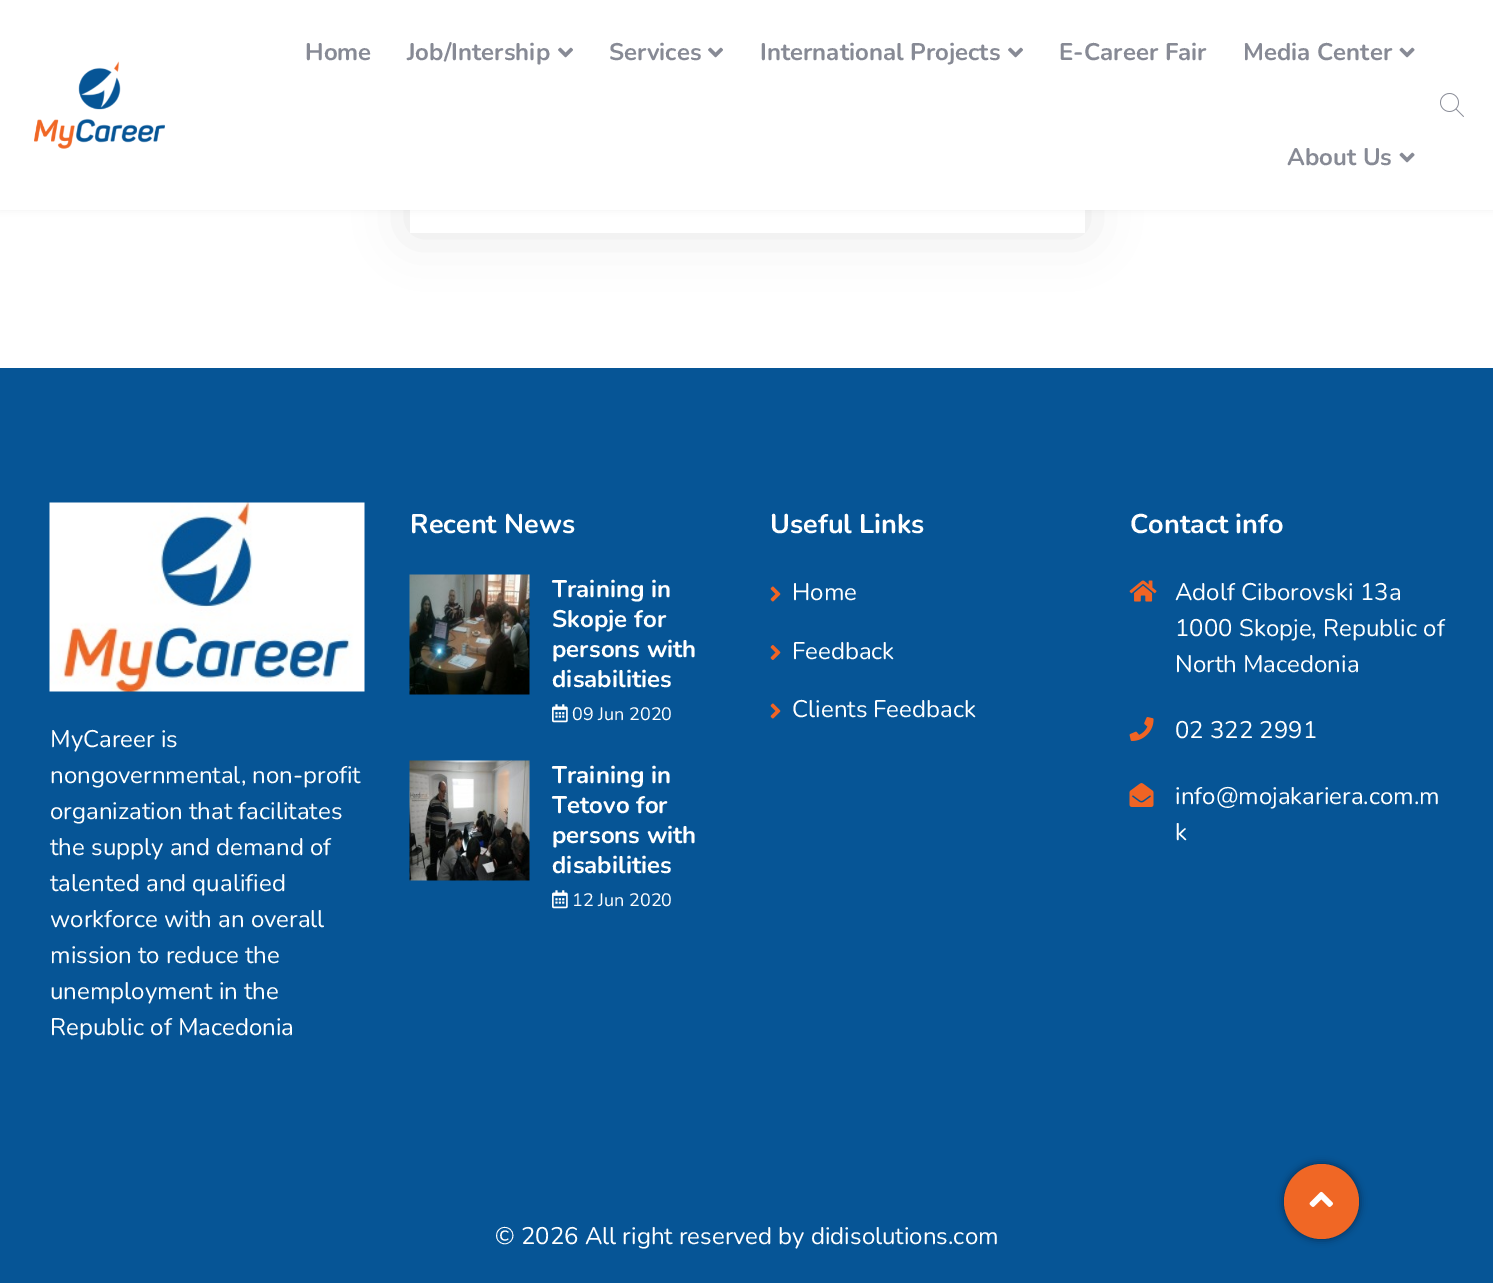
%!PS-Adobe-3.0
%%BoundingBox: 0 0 1493 1283
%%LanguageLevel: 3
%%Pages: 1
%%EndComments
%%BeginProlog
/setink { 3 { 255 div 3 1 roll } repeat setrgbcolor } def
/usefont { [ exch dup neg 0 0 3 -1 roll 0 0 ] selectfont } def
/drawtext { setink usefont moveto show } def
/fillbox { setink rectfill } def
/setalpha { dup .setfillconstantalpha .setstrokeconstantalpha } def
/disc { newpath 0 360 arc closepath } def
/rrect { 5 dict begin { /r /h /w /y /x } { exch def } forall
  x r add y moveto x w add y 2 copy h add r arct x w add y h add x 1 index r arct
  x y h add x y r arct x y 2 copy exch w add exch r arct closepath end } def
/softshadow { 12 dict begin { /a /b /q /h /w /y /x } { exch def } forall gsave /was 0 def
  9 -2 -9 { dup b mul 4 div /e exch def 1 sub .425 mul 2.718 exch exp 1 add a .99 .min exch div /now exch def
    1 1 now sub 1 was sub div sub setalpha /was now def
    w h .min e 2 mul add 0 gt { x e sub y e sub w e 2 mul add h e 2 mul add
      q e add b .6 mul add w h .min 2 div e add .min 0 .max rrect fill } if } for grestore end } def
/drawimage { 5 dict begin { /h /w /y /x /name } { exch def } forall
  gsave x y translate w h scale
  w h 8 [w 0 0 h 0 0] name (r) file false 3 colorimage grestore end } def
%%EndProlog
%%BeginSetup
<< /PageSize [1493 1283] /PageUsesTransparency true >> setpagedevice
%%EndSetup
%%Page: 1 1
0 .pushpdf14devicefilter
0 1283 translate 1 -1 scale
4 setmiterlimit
0 0 1493 1283 255 255 255 fillbox
0 0 0 setink
410 -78 675 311 0 26 0.1 softshadow
410 210 675 23 255 255 255 fillbox
0 0 0 setink
0 0 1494 210 0 4 0.05 softshadow
0 0 1493 210 255 255 255 fillbox
(assets/img1.rgb) 34 61 131 88 drawimage
(Home) 305 60 /Nunito-Bold 24 135 138 149 drawtext
(Job/Intership) 407 60 /Nunito-Bold 24 135 138 149 drawtext
(assets/img2.rgb) 558 47 15 11 drawimage
(Services) 609 60 /Nunito-Bold 24 135 138 149 drawtext
(assets/img2.rgb) 708 47 15 11 drawimage
(International Projects) 760 60 /Nunito-Bold 24 135 138 149 drawtext
(assets/img2.rgb) 1008 47 15 11 drawimage
(E-Career Fair) 1059 60 /Nunito-Bold 24 135 138 149 drawtext
(Media Center) 1243 60 /Nunito-Bold 24 135 138 149 drawtext
(assets/img3.rgb) 1399 47 16 11 drawimage
(About Us) 1287 165 /Nunito-Bold 24 135 138 149 drawtext
(assets/img3.rgb) 1399 152 16 11 drawimage
(assets/img4.rgb) 1440 93 24 24 drawimage
0 368 1493 915 6 85 150 fillbox
(Recent News) 410 533 /Nunito-Bold 27 255 255 255 drawtext
(assets/img5.rgb) 409 574 121 121 drawimage
(Training in) 552 597 /Nunito-Bold 24 255 255 255 drawtext
(Skopje for) 552 627 /Nunito-Bold 24 255 255 255 drawtext
(persons with) 552 657 /Nunito-Bold 24 255 255 255 drawtext
(disabilities) 552 687 /Nunito-Bold 24 255 255 255 drawtext
(assets/img6.rgb) 552 704 16 19 drawimage
(09 Jun 2020) 572 720 /Nunito-Regular 18 255 255 255 drawtext
(assets/img7.rgb) 409 760 121 121 drawimage
(Training in) 552 783 /Nunito-Bold 24 255 255 255 drawtext
(Tetovo for) 552 813 /Nunito-Bold 24 255 255 255 drawtext
(persons with) 552 843 /Nunito-Bold 24 255 255 255 drawtext
(disabilities) 552 873 /Nunito-Bold 24 255 255 255 drawtext
(assets/img6.rgb) 552 890 16 19 drawimage
(12 Jun 2020) 572 906 /Nunito-Regular 18 255 255 255 drawtext
(Useful Links) 770 533 /Nunito-Bold 27 255 255 255 drawtext
(assets/img8.rgb) 770 586 11 16 drawimage
(Home) 792 600 /Nunito-Regular 24 255 255 255 drawtext
(assets/img9.rgb) 770 645 11 15 drawimage
(Feedback) 792 659 /Nunito-Regular 24 255 255 255 drawtext
(assets/img8.rgb) 770 703 11 16 drawimage
(Clients Feedback) 792 717 /Nunito-Regular 24 255 255 255 drawtext
(Contact info) 1130 533 /Nunito-Bold 27 255 255 255 drawtext
(assets/img10.rgb) 1129 580 28 22 drawimage
(Adolf Ciborovski 13а) 1175 600 /Nunito-Regular 24 255 255 255 drawtext
(1000 Skopje, Republic of) 1175 636 /Nunito-Regular 24 255 255 255 drawtext
(North Macedonia) 1175 672 /Nunito-Regular 24 255 255 255 drawtext
(assets/img11.rgb) 1129 717 25 24 drawimage
(02 322 2991) 1175 738 /Nunito-Regular 24 255 255 255 drawtext
(assets/img12.rgb) 1129 783 25 24 drawimage
(info@mojakariera.com.m) 1175 804 /Nunito-Regular 24 255 255 255 drawtext
(k) 1175 840 /Nunito-Regular 24 255 255 255 drawtext
(assets/img13.rgb) 49 502 316 190 drawimage
(MyCareer is) 50 747 /Nunito-Regular 24 255 255 255 drawtext
(nongovernmental, non-profit) 50 783 /Nunito-Regular 24 255 255 255 drawtext
(organization that facilitates) 50 819 /Nunito-Regular 24 255 255 255 drawtext
(the supply and demand of) 50 855 /Nunito-Regular 24 255 255 255 drawtext
(talented and qualified) 50 891 /Nunito-Regular 24 255 255 255 drawtext
(workforce with an overall) 50 927 /Nunito-Regular 24 255 255 255 drawtext
(mission to reduce the) 50 963 /Nunito-Regular 24 255 255 255 drawtext
(unemployment in the) 50 999 /Nunito-Regular 24 255 255 255 drawtext
(Republic of Macedonia) 50 1035 /Nunito-Regular 24 255 255 255 drawtext
(© 2026 All right reserved by didisolutions.com) 495 1244 /Nunito-Regular 24 255 255 255 drawtext
0 0 0 setink
1284 1164 75 75 37.5 4 0.5 softshadow
240 103 37 setink
1321.5 1201.5 37.5 disc fill
(assets/img14.rgb) 1309 1191 24 16 drawimage
.poppdf14devicefilter showpage
%%EOF
